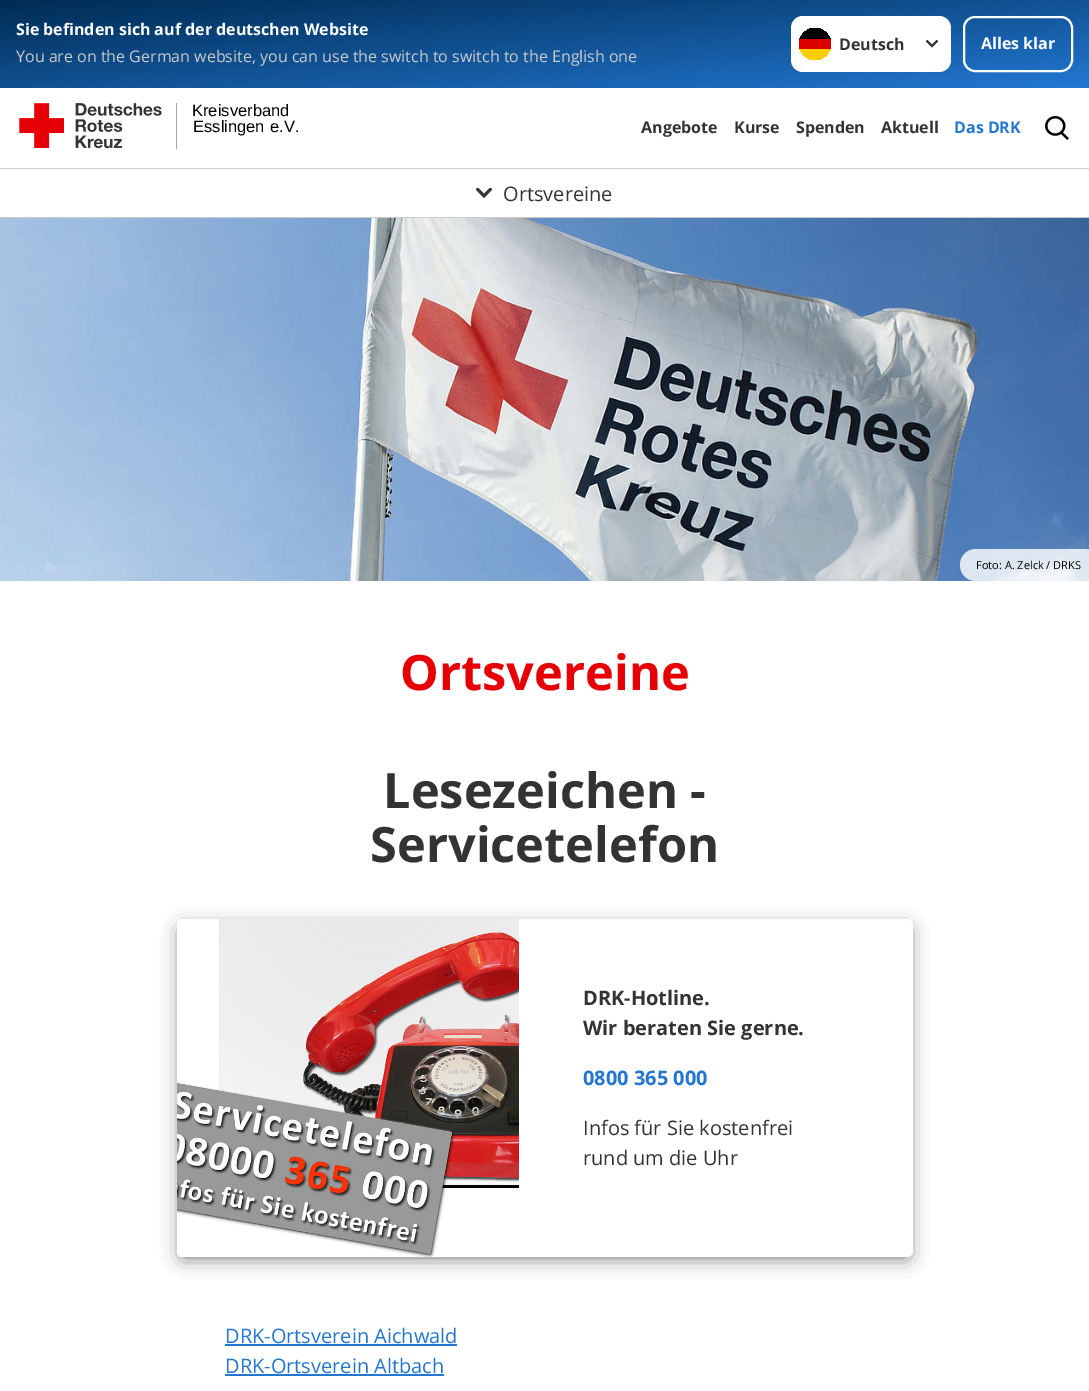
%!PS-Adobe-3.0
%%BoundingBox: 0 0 1089 1391
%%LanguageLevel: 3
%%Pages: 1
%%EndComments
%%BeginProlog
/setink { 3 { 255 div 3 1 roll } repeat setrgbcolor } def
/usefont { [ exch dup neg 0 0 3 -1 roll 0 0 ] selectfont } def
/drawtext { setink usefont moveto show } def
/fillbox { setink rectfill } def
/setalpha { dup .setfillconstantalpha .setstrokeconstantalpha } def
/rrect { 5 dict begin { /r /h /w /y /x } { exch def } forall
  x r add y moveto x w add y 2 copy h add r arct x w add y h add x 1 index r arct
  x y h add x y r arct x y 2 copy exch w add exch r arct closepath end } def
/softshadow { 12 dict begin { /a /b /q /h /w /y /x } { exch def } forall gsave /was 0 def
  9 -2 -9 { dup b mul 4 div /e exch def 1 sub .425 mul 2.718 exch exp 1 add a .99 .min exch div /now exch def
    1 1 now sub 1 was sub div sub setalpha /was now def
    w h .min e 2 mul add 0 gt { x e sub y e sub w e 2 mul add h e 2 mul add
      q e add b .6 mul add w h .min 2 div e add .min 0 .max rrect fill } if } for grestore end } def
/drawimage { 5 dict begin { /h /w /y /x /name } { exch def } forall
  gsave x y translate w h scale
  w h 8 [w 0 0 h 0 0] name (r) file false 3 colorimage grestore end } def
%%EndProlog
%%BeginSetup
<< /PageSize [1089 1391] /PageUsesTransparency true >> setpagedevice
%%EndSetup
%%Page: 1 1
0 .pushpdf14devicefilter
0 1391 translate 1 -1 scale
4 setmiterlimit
0 0 1089 1391 255 255 255 fillbox
gsave 0 0 moveto 1089 0 lineto 1089 88 lineto 0 88 lineto closepath clip newpath
<< /ShadingType 2 /ColorSpace /DeviceRGB /Coords [537 -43 552 131] /Extend [true true] /Function << /FunctionType 2 /Domain [0 1] /C0 [0 0.176 0.333] /C1 [0.133 0.463 0.816] /N 1 >> >> shfill grestore
(Sie befinden sich auf der deutschen Website) 16 35 /OpenSans-Bold 16 255 255 255 drawtext
(You are on the German website, you can use the switch to switch to the English one) 16 62 /OpenSans-Regular 16 203 203 203 drawtext
255 255 255 setink
791 16 160 56 12 rrect fill
gsave
799 28 32 32 16 rrect clip newpath
799 49 32 11 255 206 0 fillbox
799 28 32 11 0 0 0 fillbox
799 39 32 10 221 0 0 fillbox
grestore
(assets/img1.rgb) 926 40 12 8 drawimage
(Deutsch) 839 50 /OpenSans-Bold 16 51 51 51 drawtext
255 255 255 setink
2 setlinewidth
964 17 108 54 11 rrect stroke
(Alles klar) 981 49 /OpenSans-Bold 16 255 255 255 drawtext
0 168 1089 1 203 203 203 fillbox
(assets/img2.rgb) 19 103 159 47 drawimage
(Kreisverband) 192 116 /LiberationSans-Regular 16.5 0 0 0 drawtext
193 132 moveto 1 0 32 (Esslingen e.V.) widthshow
(Angebote) 641 133 /OpenSans-Bold 16 51 51 51 drawtext
(Kurse) 734 133 /OpenSans-Bold 16 51 51 51 drawtext
(Spenden) 796 133 /OpenSans-Bold 16 51 51 51 drawtext
(Aktuell) 881 133 /OpenSans-Bold 16 51 51 51 drawtext
(Das DRK) 954 133 /OpenSans-Bold 16 34 118 208 drawtext
(assets/img3.rgb) 1045 116 24 24 drawimage
0 217 1089 1 203 203 203 fillbox
(assets/img4.rgb) 476 188 16 11 drawimage
(Ortsvereine) 503 201 /OpenSans-Regular 20 51 51 51 drawtext
(assets/img5.rgb) 0 218 1089 363 drawimage
0.8 setalpha
255 255 255 setink
976 549 moveto 1089 549 lineto 1089 581 lineto 976 581 lineto 967 581 960 574 960 565 curveto 960 556 967 549 976 549 curveto closepath fill
1 setalpha
(Foto: A. Zelck / DRKS) 976 569 /OpenSans-Regular 11 0 0 0 drawtext
(Ortsvereine) 400 690 /OpenSans-Bold 48.75 230 0 5 drawtext
(Lesezeichen -) 383 808 /OpenSans-Bold 48.75 51 51 51 drawtext
(Servicetelefon) 370 862 /OpenSans-Bold 48.75 51 51 51 drawtext
102 102 102 setink
182 929 726 328 1 10 1 softshadow
255 255 255 setink
177 919 736 338 6 rrect fill
(assets/img6.rgb) 177 919 342 338 drawimage
(DRK-Hotline.) 583 1005 /OpenSans-Bold 20 51 51 51 drawtext
(Wir beraten Sie gerne.) 583 1035 /OpenSans-Bold 20 51 51 51 drawtext
(0800 365 000) 583 1085 /OpenSans-Bold 20 34 118 208 drawtext
(Infos für Sie kostenfrei) 583 1135 /OpenSans-Regular 20 51 51 51 drawtext
(rund um die Uhr) 583 1165 /OpenSans-Regular 20 51 51 51 drawtext
(DRK-Ortsverein Aichwald) 225 1343 /OpenSans-Regular 20 34 118 208 drawtext
225 1344 232 2 34 118 208 fillbox
(DRK-Ortsverein Altbach) 225 1373 /OpenSans-Regular 20 34 118 208 drawtext
225 1374 219 2 34 118 208 fillbox
.poppdf14devicefilter showpage
%%EOF
